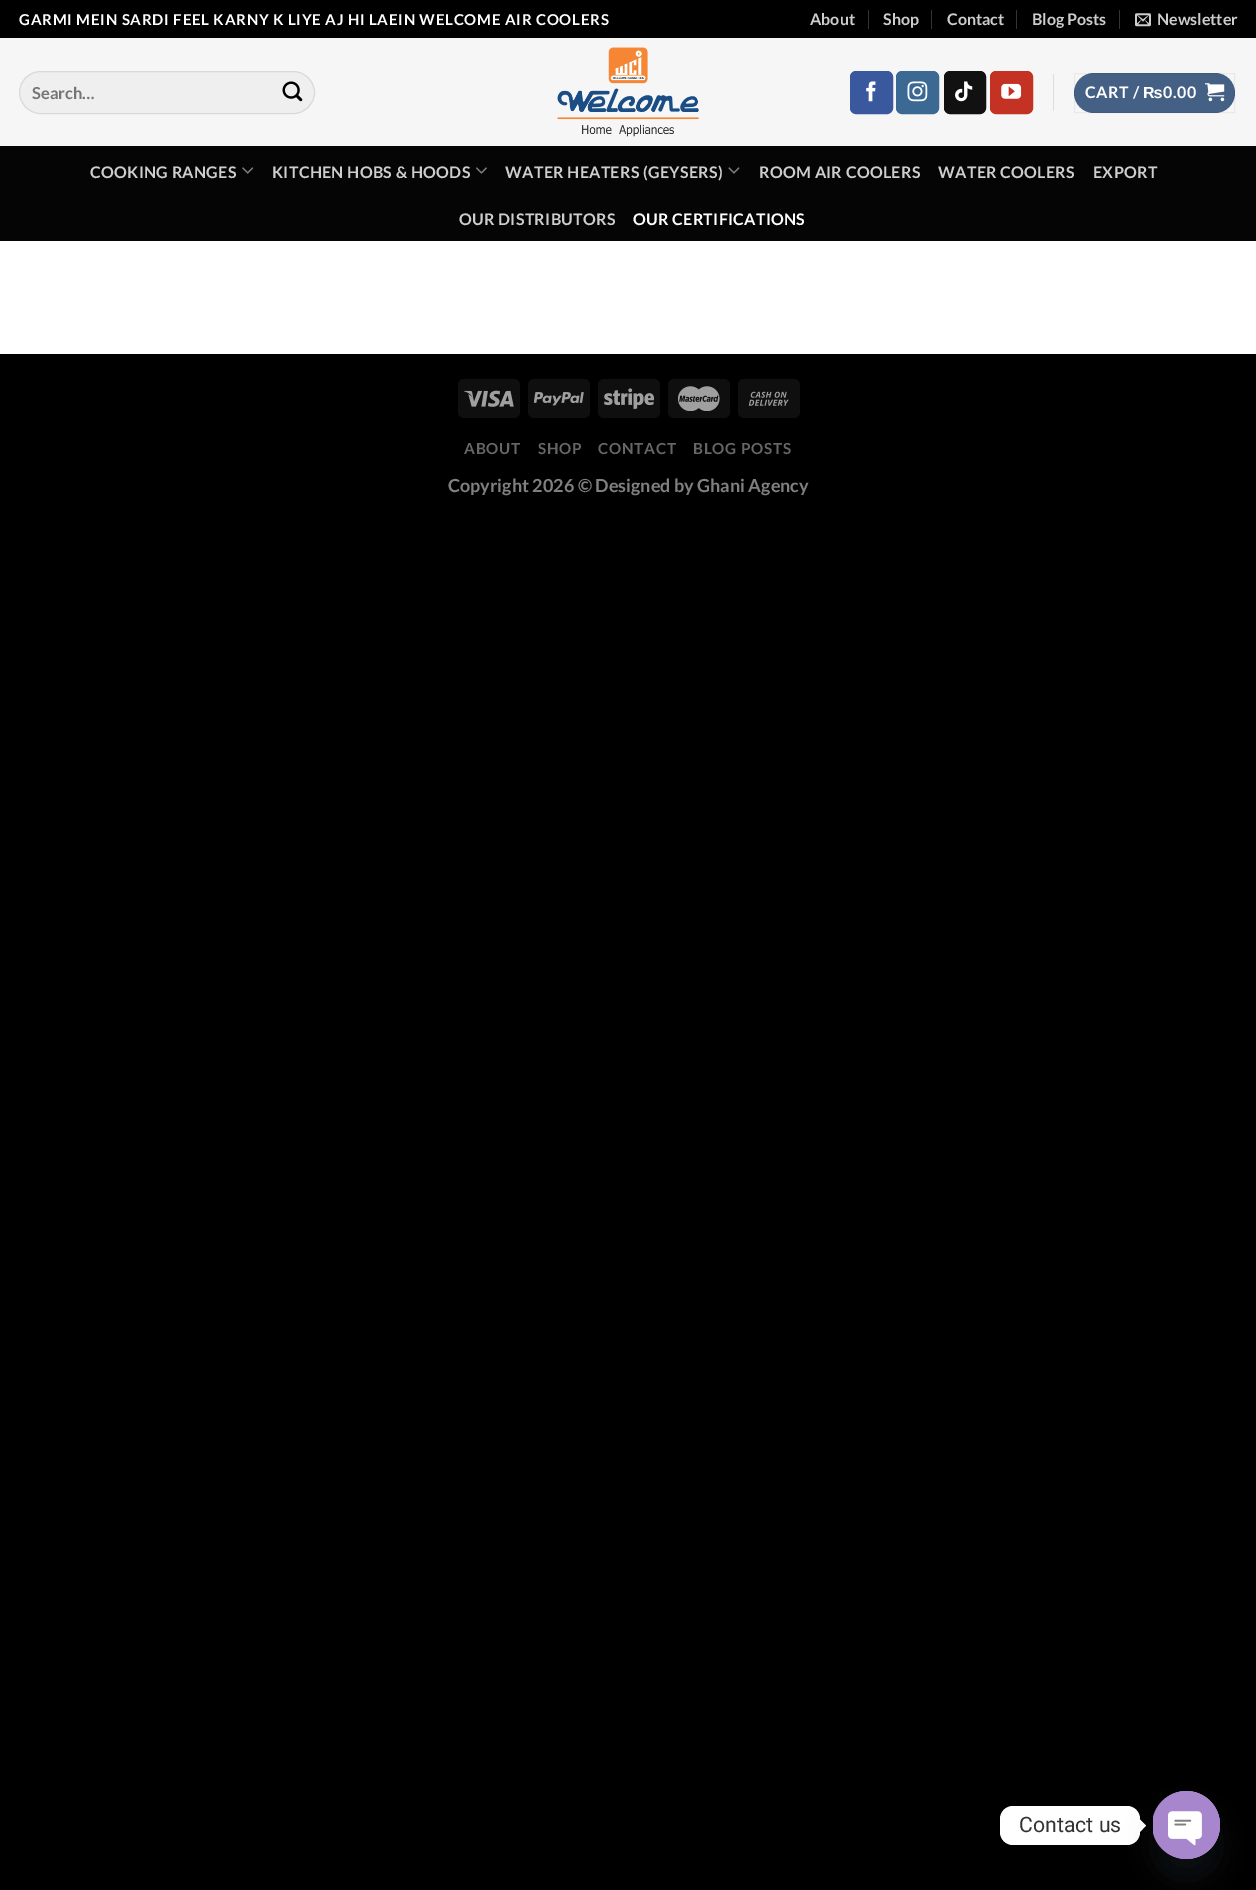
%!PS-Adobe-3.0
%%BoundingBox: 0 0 1256 1890
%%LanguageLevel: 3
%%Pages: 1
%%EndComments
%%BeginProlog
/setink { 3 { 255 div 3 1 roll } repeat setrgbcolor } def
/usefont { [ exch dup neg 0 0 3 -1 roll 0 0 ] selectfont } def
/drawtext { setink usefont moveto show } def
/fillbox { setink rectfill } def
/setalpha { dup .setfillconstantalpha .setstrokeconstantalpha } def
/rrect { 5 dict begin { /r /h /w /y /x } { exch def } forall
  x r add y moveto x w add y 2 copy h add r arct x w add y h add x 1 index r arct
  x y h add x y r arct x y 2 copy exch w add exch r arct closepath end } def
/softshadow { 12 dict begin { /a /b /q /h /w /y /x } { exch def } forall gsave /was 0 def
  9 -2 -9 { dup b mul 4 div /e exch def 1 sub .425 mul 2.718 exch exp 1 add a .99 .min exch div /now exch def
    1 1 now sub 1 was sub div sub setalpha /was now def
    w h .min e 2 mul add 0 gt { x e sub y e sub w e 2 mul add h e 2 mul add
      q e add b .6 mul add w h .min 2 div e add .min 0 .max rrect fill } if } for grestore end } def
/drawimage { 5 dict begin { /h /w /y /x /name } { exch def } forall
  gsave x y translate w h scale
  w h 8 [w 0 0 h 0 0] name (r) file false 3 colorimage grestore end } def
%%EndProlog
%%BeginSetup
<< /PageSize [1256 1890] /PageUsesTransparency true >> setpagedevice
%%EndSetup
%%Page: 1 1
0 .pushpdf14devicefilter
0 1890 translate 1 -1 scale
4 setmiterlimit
0 0 1256 1890 0 0 0 fillbox
0 241 1256 113 255 255 255 fillbox
/Lato-Bold 15 usefont
19 25 moveto 0.75 0 (GARMI MEIN SARDI FEEL KARNY K LIYE AJ HI LAEIN WELCOME AIR COOLERS) ashow
(About) 810 25 /Lato-Bold 16 205 205 205 drawtext
868 10 1 19 51 51 51 fillbox
(Shop) 883 25 /Lato-Bold 16 205 205 205 drawtext
931 10 1 19 51 51 51 fillbox
(Contact) 947 25 /Lato-Bold 16 205 205 205 drawtext
1016 10 1 19 51 51 51 fillbox
(Blog Posts) 1032 25 /Lato-Bold 16 205 205 205 drawtext
1119 10 1 19 51 51 51 fillbox
(assets/img1.rgb) 1135 13 16 14 drawimage
(Newsletter) 1157 25 /Lato-Bold 16 205 205 205 drawtext
0 38 1256 108 246 246 246 fillbox
239 239 239 setink
19 71 296 43 21.5 rrect fill
0.09 setalpha
0 0 0 setink
19.5 71.5 295 42 21 rrect stroke
1 setalpha
(Search…) 32 99 /Lato-Bold 16.5 117 117 117 drawtext
(assets/img2.rgb) 282 81 21 21 drawimage
(assets/img3.rgb) 557 47 142 90 drawimage
58 88 157 setink
850.5 71.5 42 42 5.5 rrect gsave fill grestore
stroke
(assets/img4.rgb) 866 81 10 21 drawimage
59 105 148 setink
896.5 71.5 42 42 5.5 rrect gsave fill grestore
stroke
(assets/img5.rgb) 907 81 21 21 drawimage
17 17 17 setink
944.5 71.5 41 42 5.5 rrect gsave fill grestore
stroke
(assets/img6.rgb) 955 81 18 21 drawimage
195 50 35 setink
990.5 71.5 42 42 5.5 rrect gsave fill grestore
stroke
(assets/img7.rgb) 1001 83 21 16 drawimage
1053 74 1 37 221 221 221 fillbox
68 96 132 setink
1074 73 161 40 20 rrect fill
0.05 setalpha
0 0 0 setink
1074.5 73.5 160 39 rectstroke
/Lato-Bold 16 usefont
1 setalpha
255 255 255 setink
1085 98 moveto 0.5 0 (CART /) ashow
/LiberationSans-Bold 16 usefont
1143 98 moveto 0.5 0 (₨) ashow
/Lato-Bold 16 usefont
1163 98 moveto 0.5 0 (0.00) ashow
(assets/img8.rgb) 1205 83 20 19 drawimage
0 146 1256 95 5 5 5 fillbox
205 205 205 setink
90 178 moveto 0.3 0 (COOKING RANGES) ashow
(assets/img9.rgb) 242 167 12 7 drawimage
272 178 moveto 0.3 0 (KITCHEN HOBS & HOODS) ashow
(assets/img10.rgb) 476 167 11 7 drawimage
505 178 moveto 0.3 0 (WATER HEATERS \(GEYSERS\)) ashow
(assets/img11.rgb) 728 167 12 7 drawimage
759 178 moveto 0.3 0 (ROOM AIR COOLERS) ashow
938 178 moveto 0.3 0 (WATER COOLERS) ashow
1093 178 moveto 0.3 0 (EXPORT) ashow
459 225 moveto 0.3 0 (OUR DISTRIBUTORS) ashow
255 255 255 setink
633 225 moveto 0.3 0 (OUR CERTIFICATIONS) ashow
15 15 15 setink
458 379 62 39 6 rrect fill
(assets/img12.rgb) 464 390 50 17 drawimage
528 379 62 39 6 rrect fill
(assets/img13.rgb) 534 392 50 14 drawimage
598 379 62 39 6 rrect fill
(assets/img14.rgb) 604 388 50 22 drawimage
668 379 62 39 6 rrect fill
(assets/img15.rgb) 677 386 43 25 drawimage
738 379 62 39 6 rrect fill
(assets/img16.rgb) 748 391 41 15 drawimage
/Lato-Bold 15.25 usefont
102 102 102 setink
464 454 moveto 0.75 0 (ABOUT) ashow
538 454 moveto 0.75 0 (SHOP) ashow
598 454 moveto 0.75 0 (CONTACT) ashow
693 454 moveto 0.75 0 (BLOG POSTS) ashow
(Copyright 2026 © Designed by Ghani Agency) 448 492 /Lato-Bold 18 128 128 128 drawtext
255 255 255 setink
1000 1806 140 39 13 rrect fill
(Contact us) 1019 1832 /Roboto-Regular 21.25 51 51 51 drawtext
255 255 255 setink
1140 1832 moveto 1140 1819.5 lineto 1146 1825.5 lineto closepath fill
73 104 126 setink
1153 1811 67 68 33.5 15 0.16 softshadow
168 134 205 setink
1153 1791 67 68 33.5 rrect fill
(assets/img17.rgb) 1153 1791 67 68 drawimage
.poppdf14devicefilter showpage
%%EOF
